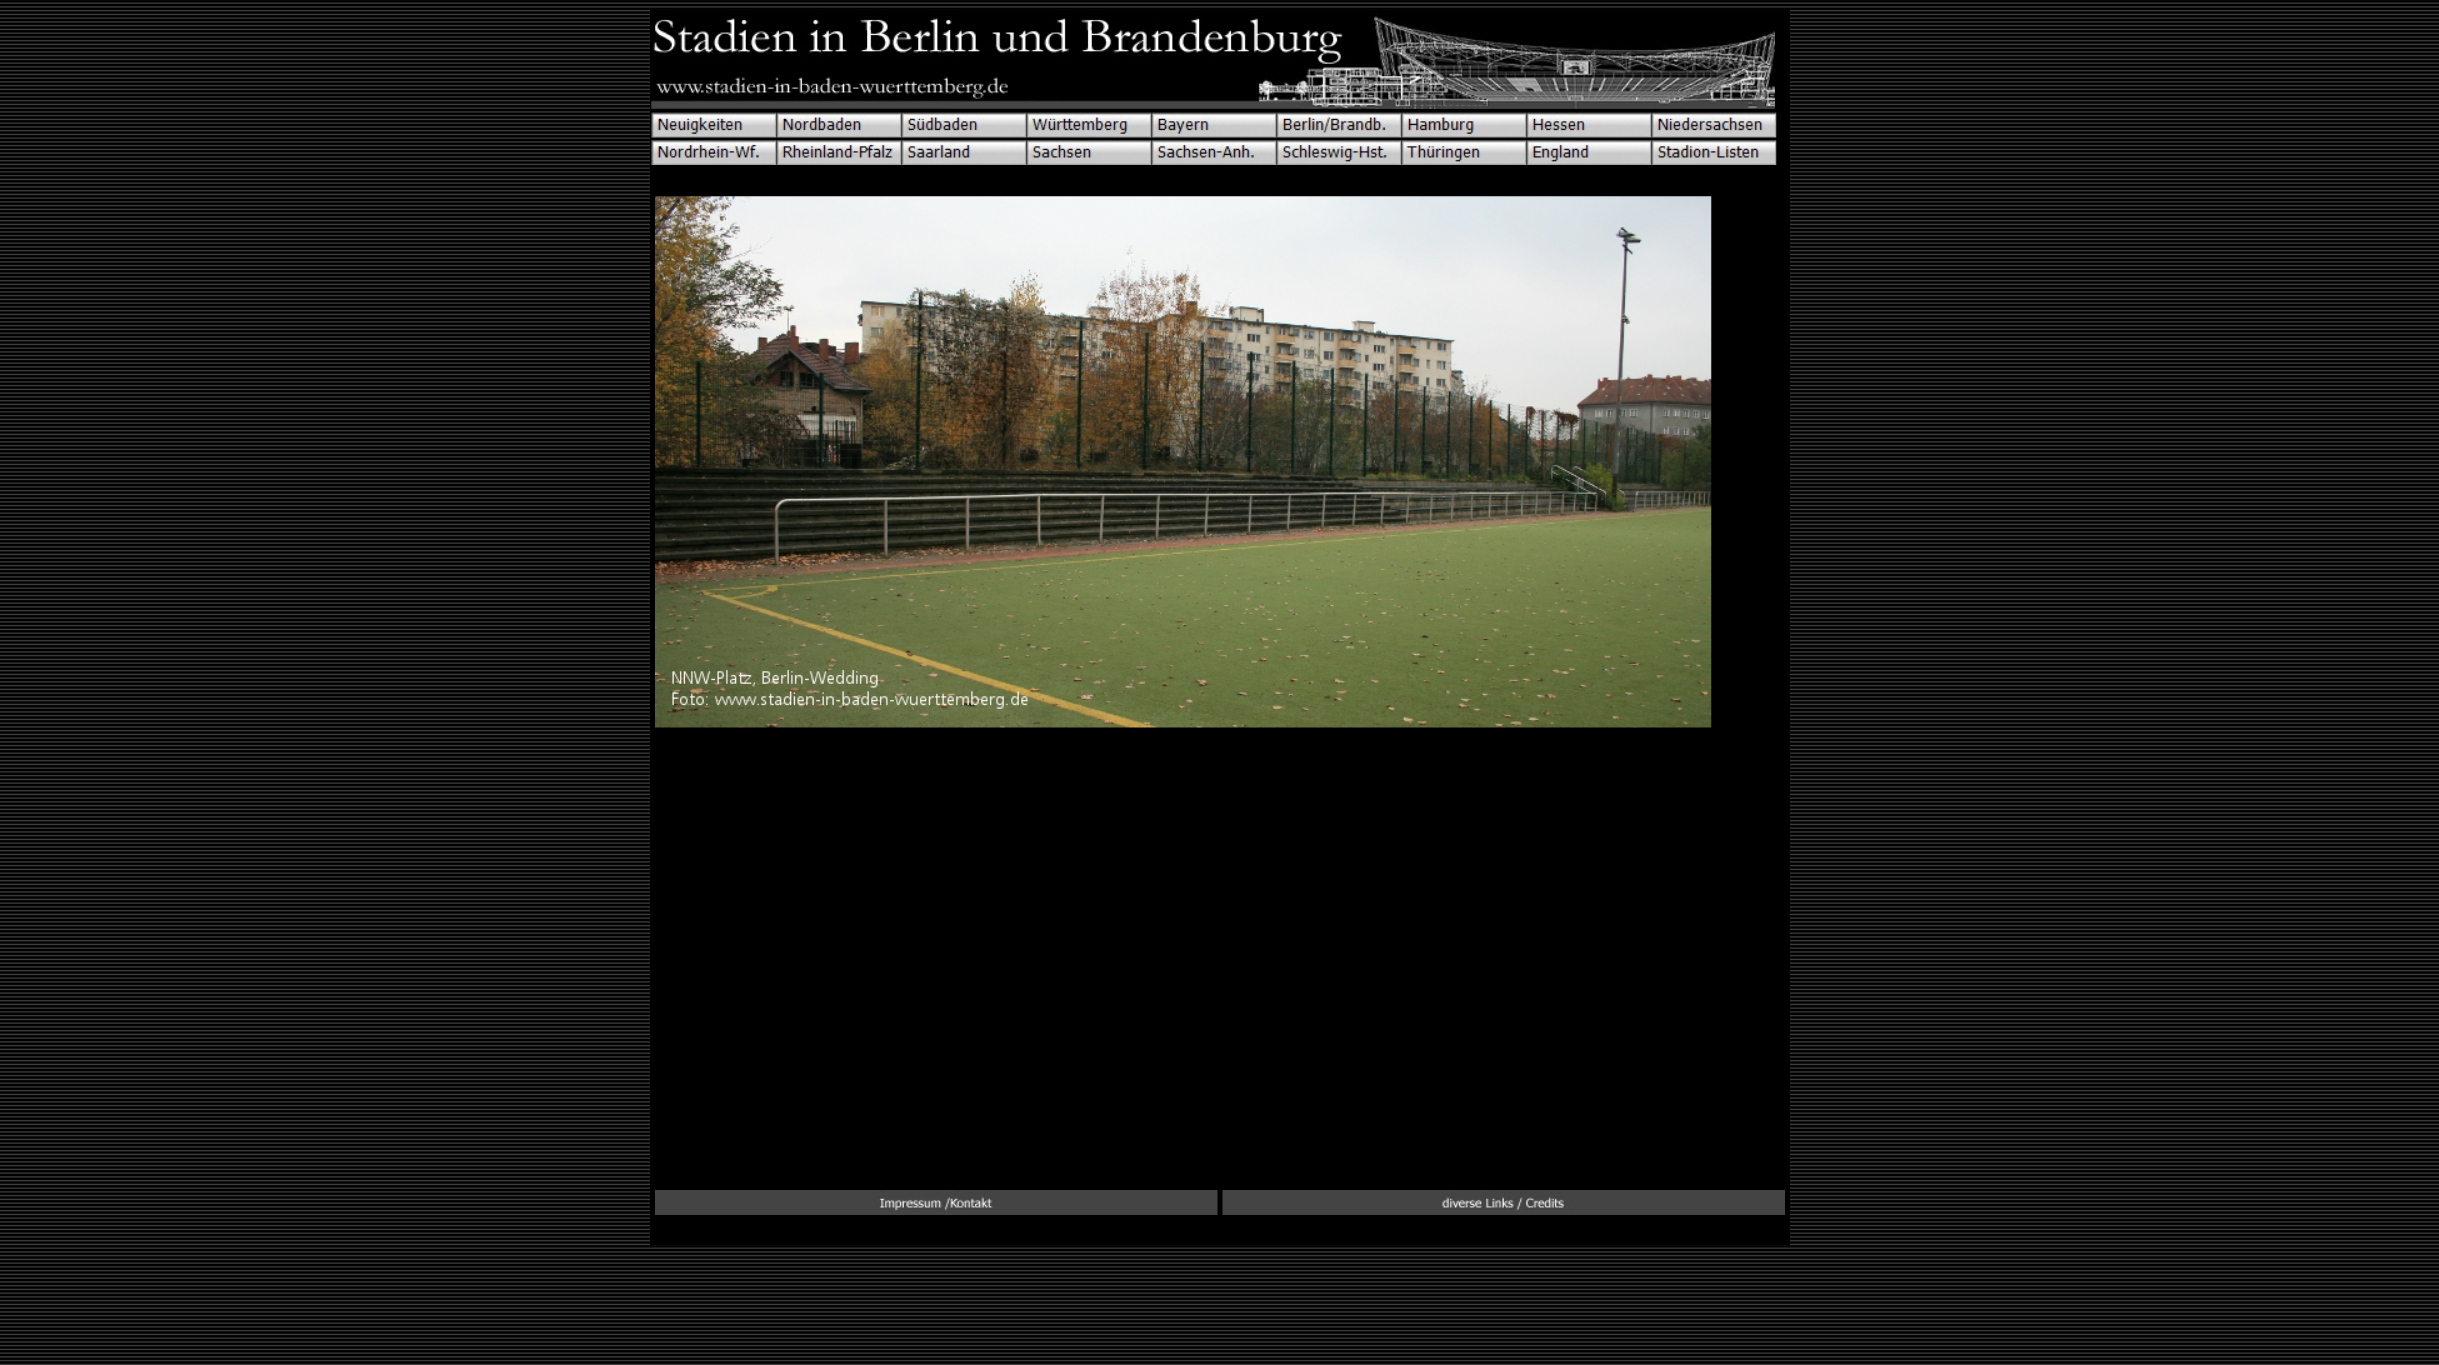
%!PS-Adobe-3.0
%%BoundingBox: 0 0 2439 1365
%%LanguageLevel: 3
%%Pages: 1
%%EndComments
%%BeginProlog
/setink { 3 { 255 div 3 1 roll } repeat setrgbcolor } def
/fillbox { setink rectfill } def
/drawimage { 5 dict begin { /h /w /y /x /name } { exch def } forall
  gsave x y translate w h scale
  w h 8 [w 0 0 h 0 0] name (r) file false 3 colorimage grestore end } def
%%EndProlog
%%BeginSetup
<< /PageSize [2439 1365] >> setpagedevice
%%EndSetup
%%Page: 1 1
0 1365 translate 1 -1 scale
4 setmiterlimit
0 0 2439 1365 255 255 255 fillbox
(assets/img1.rgb) 0 0 2439 1365 drawimage
650 10 1140 1235 0 0 0 fillbox
(assets/img2.rgb) 651 13 1124 97 drawimage
(assets/img3.rgb) 651 112 126 26 drawimage
(assets/img4.rgb) 776 112 126 26 drawimage
(assets/img5.rgb) 901 112 126 26 drawimage
(assets/img6.rgb) 1026 112 126 26 drawimage
(assets/img7.rgb) 1151 112 126 26 drawimage
(assets/img8.rgb) 1276 112 126 26 drawimage
(assets/img9.rgb) 1401 112 126 26 drawimage
(assets/img10.rgb) 1526 112 126 26 drawimage
(assets/img11.rgb) 1651 112 126 26 drawimage
(assets/img12.rgb) 651 140 126 25 drawimage
(assets/img13.rgb) 776 140 126 25 drawimage
(assets/img14.rgb) 901 140 126 25 drawimage
(assets/img15.rgb) 1026 140 126 25 drawimage
(assets/img16.rgb) 1151 140 126 25 drawimage
(assets/img17.rgb) 1276 140 126 25 drawimage
(assets/img18.rgb) 1401 140 126 25 drawimage
(assets/img19.rgb) 1526 140 126 25 drawimage
(assets/img20.rgb) 1651 140 126 25 drawimage
(assets/img21.rgb) 655 196 1057 532 drawimage
(assets/img22.rgb) 655 1190 563 25 drawimage
(assets/img23.rgb) 1222 1190 563 25 drawimage
showpage
%%EOF
